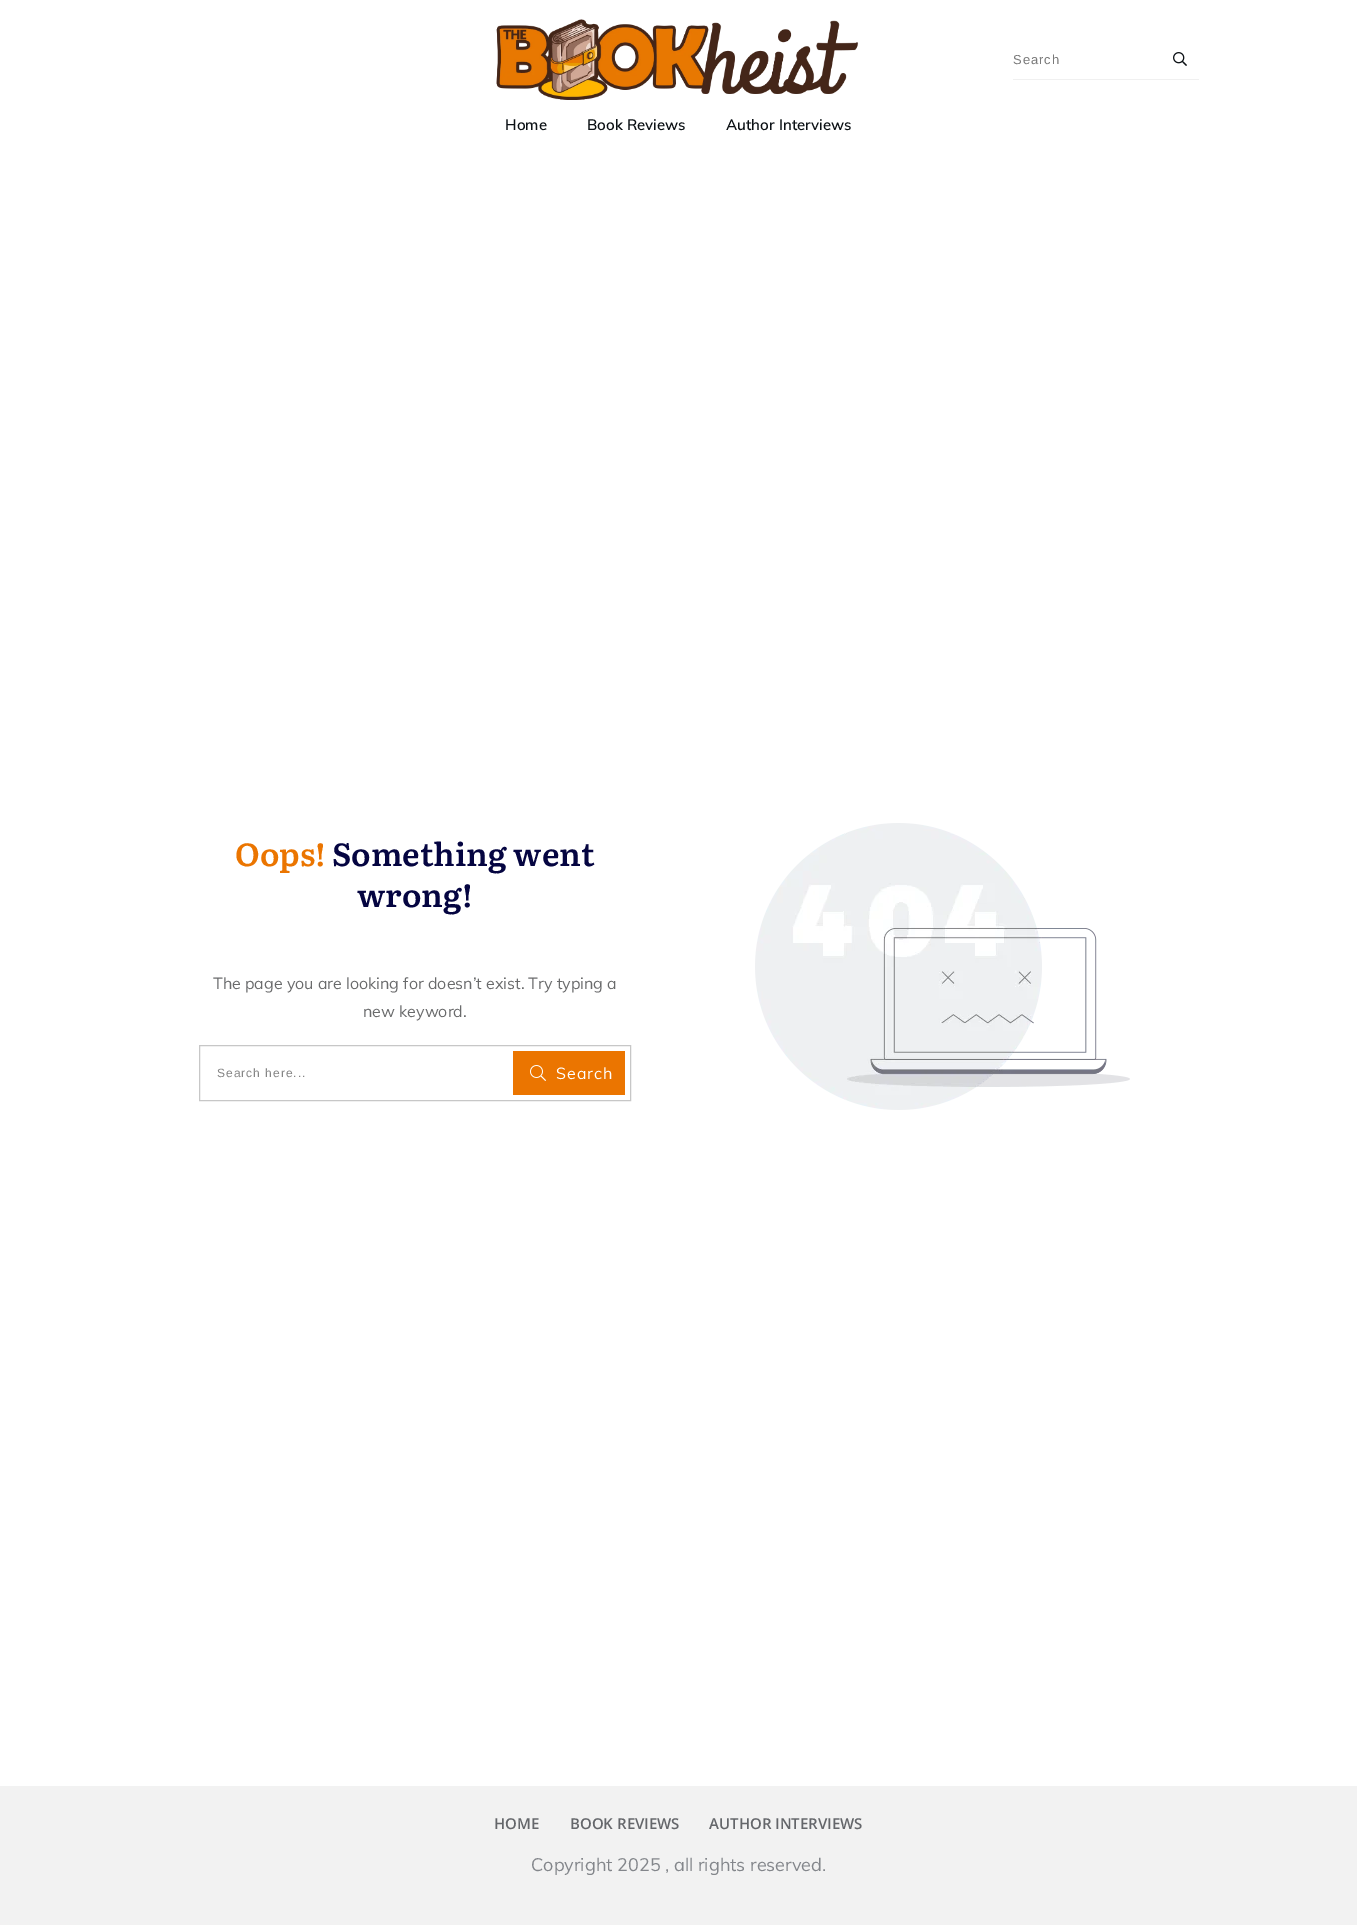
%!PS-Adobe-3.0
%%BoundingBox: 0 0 1357 1925
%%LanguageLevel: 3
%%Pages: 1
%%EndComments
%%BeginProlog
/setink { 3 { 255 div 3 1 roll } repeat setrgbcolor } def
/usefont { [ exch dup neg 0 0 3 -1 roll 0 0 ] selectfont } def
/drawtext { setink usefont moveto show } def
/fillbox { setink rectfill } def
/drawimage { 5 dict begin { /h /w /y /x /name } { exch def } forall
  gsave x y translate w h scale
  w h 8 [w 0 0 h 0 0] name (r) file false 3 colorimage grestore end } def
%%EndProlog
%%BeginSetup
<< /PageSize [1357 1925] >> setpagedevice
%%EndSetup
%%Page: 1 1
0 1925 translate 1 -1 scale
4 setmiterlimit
0 0 1357 1925 255 255 255 fillbox
(assets/img1.rgb) 496 19 363 81 drawimage
1013 79 186 1 240 240 240 fillbox
/LiberationSans-Regular 13 usefont
122 122 122 setink
1013 64 moveto 1 0 (Search) ashow
(assets/img2.rgb) 1173 52 14 14 drawimage
(Home) 505 130 /Muli-SemiBold 15 12 17 21 drawtext
(Book Reviews) 587 130 /Muli-SemiBold 15 12 17 21 drawtext
(Author Interviews) 726 130 /Muli-SemiBold 15 12 17 21 drawtext
(Oops!) 235 866 /Literata-SemiBold 32 235 117 0 drawtext
(Something went) 332 866 /Literata-SemiBold 32 5 5 65 drawtext
(wrong!) 357 907 /Literata-SemiBold 32 5 5 65 drawtext
(The page you are looking for doesn’t exist. Try typing a) 213 989 /Muli-Regular 16 106 107 108 drawtext
(new keyword.) 363 1017 /Muli-Regular 16 106 107 108 drawtext
199 199 199 setink
199.5 1045.5 431 55 rectstroke
/LiberationSans-Regular 12 usefont
133 133 133 setink
217 1077 moveto 1 0 (Search here...) ashow
513 1051 112 44 235 117 0 fillbox
(assets/img3.rgb) 530 1065 16 16 drawimage
/Muli-Regular 16 usefont
255 255 255 setink
556 1079 moveto 1 0 (Search) ashow
(assets/img4.rgb) 755 823 375 287 drawimage
0 1786 1357 139 242 242 242 fillbox
(HOME) 494 1829 /OpenSans-SemiBold 15 100 102 106 drawtext
(BOOK REVIEWS) 570 1829 /OpenSans-SemiBold 15 100 102 106 drawtext
(AUTHOR INTERVIEWS) 709 1829 /OpenSans-SemiBold 15 100 102 106 drawtext
(Copyright 2025 , all rights reserved.) 531 1871 /Muli-Regular 18 131 134 139 drawtext
showpage
%%EOF
